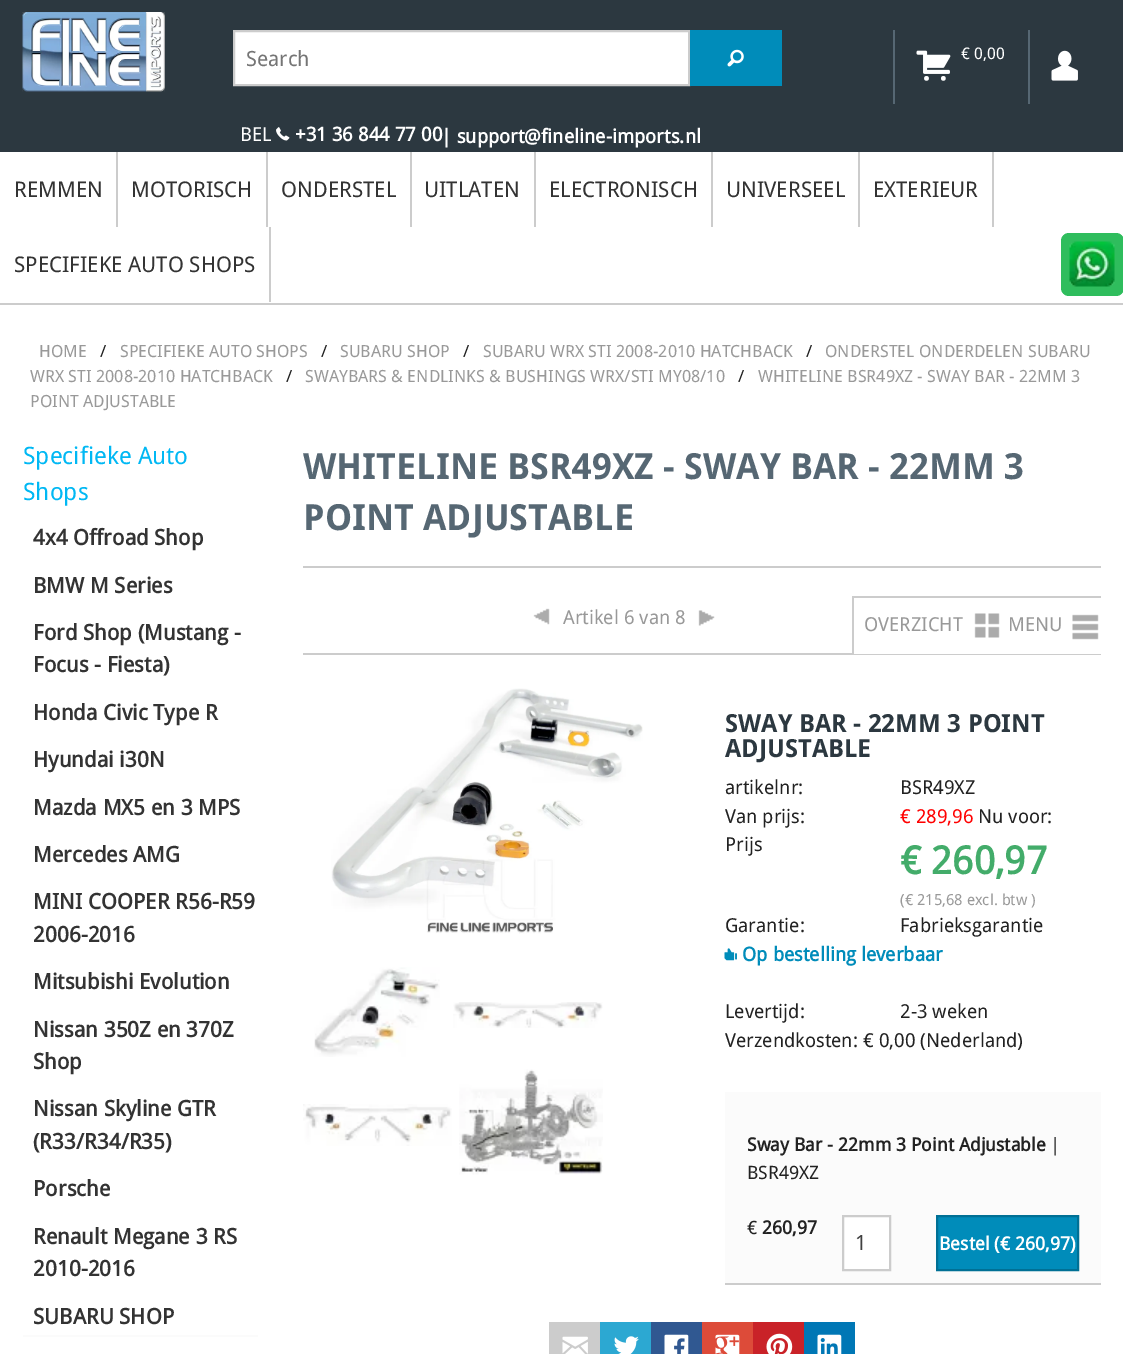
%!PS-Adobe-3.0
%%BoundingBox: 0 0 1123 1354
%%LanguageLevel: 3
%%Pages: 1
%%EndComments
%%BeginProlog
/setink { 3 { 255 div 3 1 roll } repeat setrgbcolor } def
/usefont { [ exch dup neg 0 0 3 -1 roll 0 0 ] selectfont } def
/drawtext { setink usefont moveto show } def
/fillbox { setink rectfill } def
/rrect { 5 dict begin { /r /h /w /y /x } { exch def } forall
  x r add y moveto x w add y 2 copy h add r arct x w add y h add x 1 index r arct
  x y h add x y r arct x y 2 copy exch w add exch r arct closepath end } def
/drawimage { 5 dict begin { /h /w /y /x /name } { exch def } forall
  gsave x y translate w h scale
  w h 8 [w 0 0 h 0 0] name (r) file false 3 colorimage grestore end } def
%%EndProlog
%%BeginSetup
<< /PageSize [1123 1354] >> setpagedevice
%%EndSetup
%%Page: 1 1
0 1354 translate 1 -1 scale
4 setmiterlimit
0 0 1123 1354 255 255 255 fillbox
0 0 1123 152 44 56 64 fillbox
(assets/img1.rgb) 22 12 143 80 drawimage
255 255 255 setink
234 31 moveto 689 31 lineto 689 85 lineto 234 85 lineto closepath gsave fill grestore
204 204 204 setink
2 setlinewidth
stroke
(Search) 246 66 /DroidSans-Regular 21 117 117 117 drawtext
690 30 92 56 0 140 186 fillbox
(assets/img2.rgb) 727 49 17 18 drawimage
893 30 2 74 86 103 115 fillbox
(assets/img3.rgb) 916 50 35 31 drawimage
(€ 0,00) 961 59 /DroidSans-Regular 16 255 255 255 drawtext
1028 30 2 74 86 103 115 fillbox
(assets/img4.rgb) 1051 50 27 31 drawimage
(BEL) 240 141 /DroidSans-Regular 19.25 255 255 255 drawtext
(assets/img5.rgb) 276 127 14 14 drawimage
(+31 36 844 77 00) 295 141 /DroidSans-Bold 19.25 255 255 255 drawtext
(| support@fineline-imports.nl) 441 143 /DroidSans-Bold 19.25 255 255 255 drawtext
0 303 1123 2 204 204 204 fillbox
116 152 2 75 204 204 204 fillbox
(REMMEN) 14 197 /DroidSans-Regular 21.6 51 51 51 drawtext
266 152 2 75 204 204 204 fillbox
(MOTORISCH) 131 197 /DroidSans-Regular 21.6 51 51 51 drawtext
410 152 2 75 204 204 204 fillbox
(ONDERSTEL) 281 197 /DroidSans-Regular 21.6 51 51 51 drawtext
534 152 2 75 204 204 204 fillbox
(UITLATEN) 424 197 /DroidSans-Regular 21.6 51 51 51 drawtext
711 152 2 75 204 204 204 fillbox
(ELECTRONISCH) 549 197 /DroidSans-Regular 21.6 51 51 51 drawtext
858 152 2 75 204 204 204 fillbox
(UNIVERSEEL) 726 197 /DroidSans-Regular 21.6 51 51 51 drawtext
992 152 2 75 204 204 204 fillbox
(EXTERIEUR) 873 197 /DroidSans-Regular 21.6 51 51 51 drawtext
269 227 2 75 204 204 204 fillbox
(SPECIFIEKE AUTO SHOPS) 14 272 /DroidSans-Regular 21.6 51 51 51 drawtext
47 189 93 setink
1061 233 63 63 8 rrect fill
(assets/img6.rgb) 1069 241 46 46 drawimage
(HOME) 39 357 /DroidSans-Regular 16.8 153 153 153 drawtext
(/) 100 357 /DroidSans-Regular 16.8 34 34 34 drawtext
(SPECIFIEKE AUTO SHOPS) 120 357 /DroidSans-Regular 16.8 153 153 153 drawtext
(/) 321 357 /DroidSans-Regular 16.8 34 34 34 drawtext
(SUBARU SHOP) 340 357 /DroidSans-Regular 16.8 153 153 153 drawtext
(/) 463 357 /DroidSans-Regular 16.8 34 34 34 drawtext
(SUBARU WRX STI 2008-2010 HATCHBACK) 483 357 /DroidSans-Regular 16.8 153 153 153 drawtext
(/) 806 357 /DroidSans-Regular 16.8 34 34 34 drawtext
(ONDERSTEL ONDERDELEN SUBARU) 825 357 /DroidSans-Regular 16.8 153 153 153 drawtext
(WRX STI 2008-2010 HATCHBACK) 30 382 /DroidSans-Regular 16.8 153 153 153 drawtext
(/) 286 382 /DroidSans-Regular 16.8 34 34 34 drawtext
(SWAYBARS & ENDLINKS & BUSHINGS WRX/STI MY08/10) 305 382 /DroidSans-Regular 16.8 153 153 153 drawtext
(/) 738 382 /DroidSans-Regular 16.8 34 34 34 drawtext
(WHITELINE BSR49XZ - SWAY BAR - 22MM 3) 758 382 /DroidSans-Regular 16.8 153 153 153 drawtext
(POINT ADJUSTABLE) 30 407 /DroidSans-Regular 16.8 153 153 153 drawtext
(Specifieke Auto) 23 464 /DroidSans-Regular 24 0 184 244 drawtext
(Shops) 23 500 /DroidSans-Regular 24 0 184 244 drawtext
(4x4 Offroad Shop) 33 545 /DroidSans-Bold 21.6 51 51 51 drawtext
(BMW M Series) 33 593 /DroidSans-Bold 21.6 51 51 51 drawtext
(Ford Shop \(Mustang -) 33 640 /DroidSans-Bold 21.6 51 51 51 drawtext
(Focus - Fiesta\)) 33 672 /DroidSans-Bold 21.6 51 51 51 drawtext
(Honda Civic Type R) 33 720 /DroidSans-Bold 21.6 51 51 51 drawtext
(Hyundai i30N) 33 767 /DroidSans-Bold 21.6 51 51 51 drawtext
(Mazda MX5 en 3 MPS) 33 815 /DroidSans-Bold 21.6 51 51 51 drawtext
(Mercedes AMG) 33 862 /DroidSans-Bold 21.6 51 51 51 drawtext
(MINI COOPER R56-R59) 33 909 /DroidSans-Bold 21.6 51 51 51 drawtext
(2006-2016) 33 942 /DroidSans-Bold 21.6 51 51 51 drawtext
(Mitsubishi Evolution) 33 989 /DroidSans-Bold 21.6 51 51 51 drawtext
(Nissan 350Z en 370Z) 33 1037 /DroidSans-Bold 21.6 51 51 51 drawtext
(Shop) 33 1069 /DroidSans-Bold 21.6 51 51 51 drawtext
(Nissan Skyline GTR) 33 1116 /DroidSans-Bold 21.6 51 51 51 drawtext
(\(R33/R34/R35\)) 33 1149 /DroidSans-Bold 21.6 51 51 51 drawtext
(Porsche) 33 1196 /DroidSans-Bold 21.6 51 51 51 drawtext
(Renault Megane 3 RS) 33 1244 /DroidSans-Bold 21.6 51 51 51 drawtext
(2010-2016) 33 1276 /DroidSans-Bold 21.6 51 51 51 drawtext
(SUBARU SHOP) 33 1324 /DroidSans-Bold 21.6 51 51 51 drawtext
23 1335 235 2 251 251 251 fillbox
303 566 798 2 204 204 204 fillbox
(WHITELINE BSR49XZ - SWAY BAR - 22MM 3) 303 479 /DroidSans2-Bold 36 86 103 115 drawtext
(POINT ADJUSTABLE) 303 530 /DroidSans2-Bold 36 86 103 115 drawtext
303 653 798 2 204 204 204 fillbox
(assets/img7.rgb) 533 608 17 17 drawimage
(Artikel 6 van 8) 563 624 /DroidSans-Regular 19.25 153 153 153 drawtext
(assets/img8.rgb) 698 610 17 16 drawimage
854 653 247 1 255 255 255 fillbox
852 596 249 2 204 204 204 fillbox
852 596 2 58 204 204 204 fillbox
(OVERZICHT) 864 631 /DroidSans-Regular 19.25 153 153 153 drawtext
(assets/img9.rgb) 974 613 26 25 drawimage
(MENU) 1008 631 /DroidSans-Regular 19.25 153 153 153 drawtext
(assets/img10.rgb) 1072 614 27 26 drawimage
(assets/img11.rgb) 331 688 312 246 drawimage
(assets/img12.rgb) 314 967 126 90 drawimage
(assets/img13.rgb) 453 1002 150 26 drawimage
(assets/img14.rgb) 303 1104 149 42 drawimage
(assets/img15.rgb) 459 1069 144 106 drawimage
(SWAY BAR - 22MM 3 POINT) 725 732 /DroidSans2-Bold 25 44 56 64 drawtext
(ADJUSTABLE) 725 757 /DroidSans2-Bold 25 44 56 64 drawtext
(artikelnr:) 725 794 /DroidSans-Regular 19.25 34 34 34 drawtext
(BSR49XZ) 900 794 /DroidSans-Regular 19.25 34 34 34 drawtext
(Van prijs:) 725 823 /DroidSans-Regular 19.25 34 34 34 drawtext
(€ 289,96) 900 823 /DroidSans-Regular 19.25 255 0 0 drawtext
(Nu voor:) 978 823 /DroidSans-Regular 19.25 34 34 34 drawtext
(Prijs) 725 851 /DroidSans-Regular 19.25 34 34 34 drawtext
(€ 260,97) 900 874 /DroidSans-Bold 38.5 67 172 106 drawtext
(\(€ 215,68 excl. btw \)) 900 905 /DroidSans-Regular 15.25 153 153 153 drawtext
(Garantie:) 725 932 /DroidSans-Regular 19.25 34 34 34 drawtext
(Fabrieksgarantie) 900 932 /DroidSans-Regular 19.25 34 34 34 drawtext
(assets/img16.rgb) 724 948 13 13 drawimage
(Op bestelling leverbaar) 742 961 /DroidSans-Bold 19.25 0 140 186 drawtext
(Levertijd:) 725 1018 /DroidSans-Regular 19.25 34 34 34 drawtext
(2-3 weken) 900 1018 /DroidSans-Regular 19.25 34 34 34 drawtext
(Verzendkosten: € 0,00 \(Nederland\)) 725 1047 /DroidSans-Regular 19.25 34 34 34 drawtext
725 1092 376 191 251 251 251 fillbox
725 1283 376 2 204 204 204 fillbox
(Sway Bar - 22mm 3 Point Adjustable) 747 1151 /DroidSans-Bold 18.4 34 34 34 drawtext
(|) 1050 1151 /DroidSans-Regular 18.4 34 34 34 drawtext
(BSR49XZ) 747 1179 /DroidSans-Regular 18.4 34 34 34 drawtext
(€) 747 1234 /DroidSans-Regular 18.4 34 34 34 drawtext
(260,97) 762 1234 /DroidSans-Bold 18.4 34 34 34 drawtext
255 255 255 setink
843 1216 moveto 890 1216 lineto 890 1270 lineto 843 1270 lineto closepath gsave fill grestore
204 204 204 setink
stroke
(1) 855 1250 /DroidSans-Regular 21 64 64 64 drawtext
0 140 186 setink
937 1216 moveto 1078 1216 lineto 1078 1270 lineto 937 1270 lineto closepath gsave fill grestore
0 112 149 setink
stroke
(Bestel \(€ 260,97\)) 939 1250 /DroidSans-Bold 18.4 255 255 255 drawtext
549 1322 51 32 204 204 204 fillbox
(assets/img17.rgb) 562 1336 26 18 drawimage
600 1322 51 32 44 168 210 fillbox
(assets/img18.rgb) 614 1336 25 18 drawimage
651 1322 51 32 48 88 145 fillbox
(assets/img19.rgb) 664 1334 25 20 drawimage
702 1322 51 32 221 75 57 fillbox
(assets/img20.rgb) 715 1334 25 20 drawimage
753 1322 51 32 201 34 40 fillbox
(assets/img21.rgb) 766 1333 27 21 drawimage
804 1322 51 32 0 119 181 fillbox
(assets/img22.rgb) 817 1334 25 20 drawimage
showpage
%%EOF
